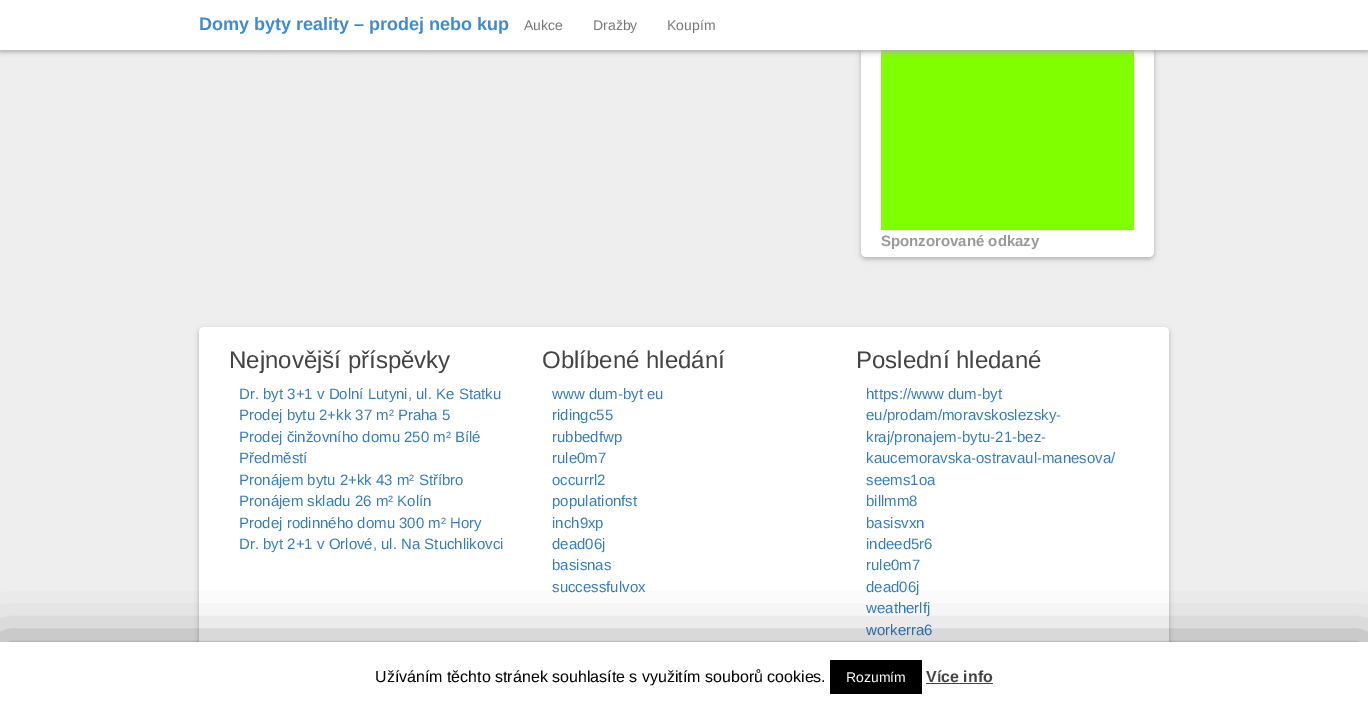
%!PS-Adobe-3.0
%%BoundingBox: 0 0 1368 707
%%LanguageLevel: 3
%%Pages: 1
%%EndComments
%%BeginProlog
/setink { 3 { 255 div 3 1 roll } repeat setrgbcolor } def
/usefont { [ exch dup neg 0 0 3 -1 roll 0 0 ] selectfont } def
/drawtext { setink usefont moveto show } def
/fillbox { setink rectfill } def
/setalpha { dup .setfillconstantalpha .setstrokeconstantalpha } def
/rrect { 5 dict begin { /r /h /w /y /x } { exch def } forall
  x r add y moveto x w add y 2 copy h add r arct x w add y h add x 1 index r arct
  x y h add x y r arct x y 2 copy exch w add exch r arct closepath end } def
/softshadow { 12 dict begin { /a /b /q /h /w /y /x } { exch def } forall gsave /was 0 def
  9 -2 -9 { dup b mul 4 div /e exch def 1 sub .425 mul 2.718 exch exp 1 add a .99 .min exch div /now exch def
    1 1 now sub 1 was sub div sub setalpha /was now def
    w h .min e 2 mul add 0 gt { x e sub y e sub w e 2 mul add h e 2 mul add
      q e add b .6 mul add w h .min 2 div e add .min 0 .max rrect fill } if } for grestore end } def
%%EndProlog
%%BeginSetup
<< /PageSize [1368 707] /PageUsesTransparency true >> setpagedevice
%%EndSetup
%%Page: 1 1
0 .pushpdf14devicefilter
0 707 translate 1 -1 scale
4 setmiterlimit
0 0 1368 707 238 238 238 fillbox
173 173 173 setink
861 -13 293 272 5 2.5 1 softshadow
255 255 255 setink
861 -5 293 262 5 rrect fill
881 50 253 180 127 255 0 fillbox
173 173 173 setink
0 2 1368 50 0 2.5 1 softshadow
0 0 1368 50 255 255 255 fillbox
(Domy byty reality – prodej nebo kup) 199 30 /LiberationSans-Bold 18 66 139 202 drawtext
(Aukce) 524 30 /LiberationSans-Regular 14 119 119 119 drawtext
(Dražby) 593 30 /LiberationSans-Regular 14 119 119 119 drawtext
(Koupím) 667 30 /LiberationSans-Regular 14 119 119 119 drawtext
(Sponzorované odkazy) 881 246 /LiberationSans-Bold 15 153 153 153 drawtext
173 173 173 setink
199 329 970 345 5 2.5 1 softshadow
255 255 255 setink
199 327 970 345 5 rrect fill
(Nejnovější příspěvky) 229 368 /LiberationSans-Regular 24 68 68 68 drawtext
(Dr. byt 3+1 v Dolní Lutyni, ul. Ke Statku) 239 399 /LiberationSans-Regular 15 53 126 189 drawtext
(Prodej bytu 2+kk 37 m² Praha 5) 239 420 /LiberationSans-Regular 15 53 126 189 drawtext
(Prodej činžovního domu 250 m² Bílé) 239 442 /LiberationSans-Regular 15 53 126 189 drawtext
(Předměstí) 239 463 /LiberationSans-Regular 15 53 126 189 drawtext
(Pronájem bytu 2+kk 43 m² Stříbro) 239 485 /LiberationSans-Regular 15 53 126 189 drawtext
(Pronájem skladu 26 m² Kolín) 239 506 /LiberationSans-Regular 15 53 126 189 drawtext
(Prodej rodinného domu 300 m² Hory) 239 528 /LiberationSans-Regular 15 53 126 189 drawtext
(Dr. byt 2+1 v Orlové, ul. Na Stuchlikovci) 239 549 /LiberationSans-Regular 15 53 126 189 drawtext
(Oblíbené hledání) 542 368 /LiberationSans-Regular 24 68 68 68 drawtext
(www dum-byt eu) 552 399 /LiberationSans-Regular 15 53 126 189 drawtext
(ridingc55) 552 420 /LiberationSans-Regular 15 53 126 189 drawtext
(rubbedfwp) 552 442 /LiberationSans-Regular 15 53 126 189 drawtext
(rule0m7) 552 463 /LiberationSans-Regular 15 53 126 189 drawtext
(occurrl2) 552 485 /LiberationSans-Regular 15 53 126 189 drawtext
(populationfst) 552 506 /LiberationSans-Regular 15 53 126 189 drawtext
(inch9xp) 552 528 /LiberationSans-Regular 15 53 126 189 drawtext
(dead06j) 552 549 /LiberationSans-Regular 15 53 126 189 drawtext
(basisnas) 552 570 /LiberationSans-Regular 15 53 126 189 drawtext
(successfulvox) 552 592 /LiberationSans-Regular 15 53 126 189 drawtext
(Poslední hledané) 856 368 /LiberationSans-Regular 24 68 68 68 drawtext
(https://www dum-byt) 866 399 /LiberationSans-Regular 15 53 126 189 drawtext
(eu/prodam/moravskoslezsky-) 866 420 /LiberationSans-Regular 15 53 126 189 drawtext
(kraj/pronajem-bytu-21-bez-) 866 442 /LiberationSans-Regular 15 53 126 189 drawtext
(kaucemoravska-ostravaul-manesova/) 866 463 /LiberationSans-Regular 15 53 126 189 drawtext
(seems1oa) 866 485 /LiberationSans-Regular 15 53 126 189 drawtext
(billmm8) 866 506 /LiberationSans-Regular 15 53 126 189 drawtext
(basisvxn) 866 528 /LiberationSans-Regular 15 53 126 189 drawtext
(indeed5r6) 866 549 /LiberationSans-Regular 15 53 126 189 drawtext
(rule0m7) 866 570 /LiberationSans-Regular 15 53 126 189 drawtext
(dead06j) 866 592 /LiberationSans-Regular 15 53 126 189 drawtext
(weatherlfj) 866 613 /LiberationSans-Regular 15 53 126 189 drawtext
(workerra6) 866 635 /LiberationSans-Regular 15 53 126 189 drawtext
0 0 0 setink
0 647 1368 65 0 25 0.5 softshadow
0 642 1368 65 255 255 255 fillbox
(Užíváním těchto stránek souhlasíte s využitím souborů cookies.) 375 682 /LiberationSans-Regular 16 0 0 0 drawtext
830 660 92 34 0 0 0 fillbox
(Rozumím) 846 682 /LiberationSans-Regular 14 255 255 255 drawtext
(Více info) 926 682 /LiberationSans-Bold 16 68 68 68 drawtext
926 683 67 1 68 68 68 fillbox
.poppdf14devicefilter showpage
%%EOF
